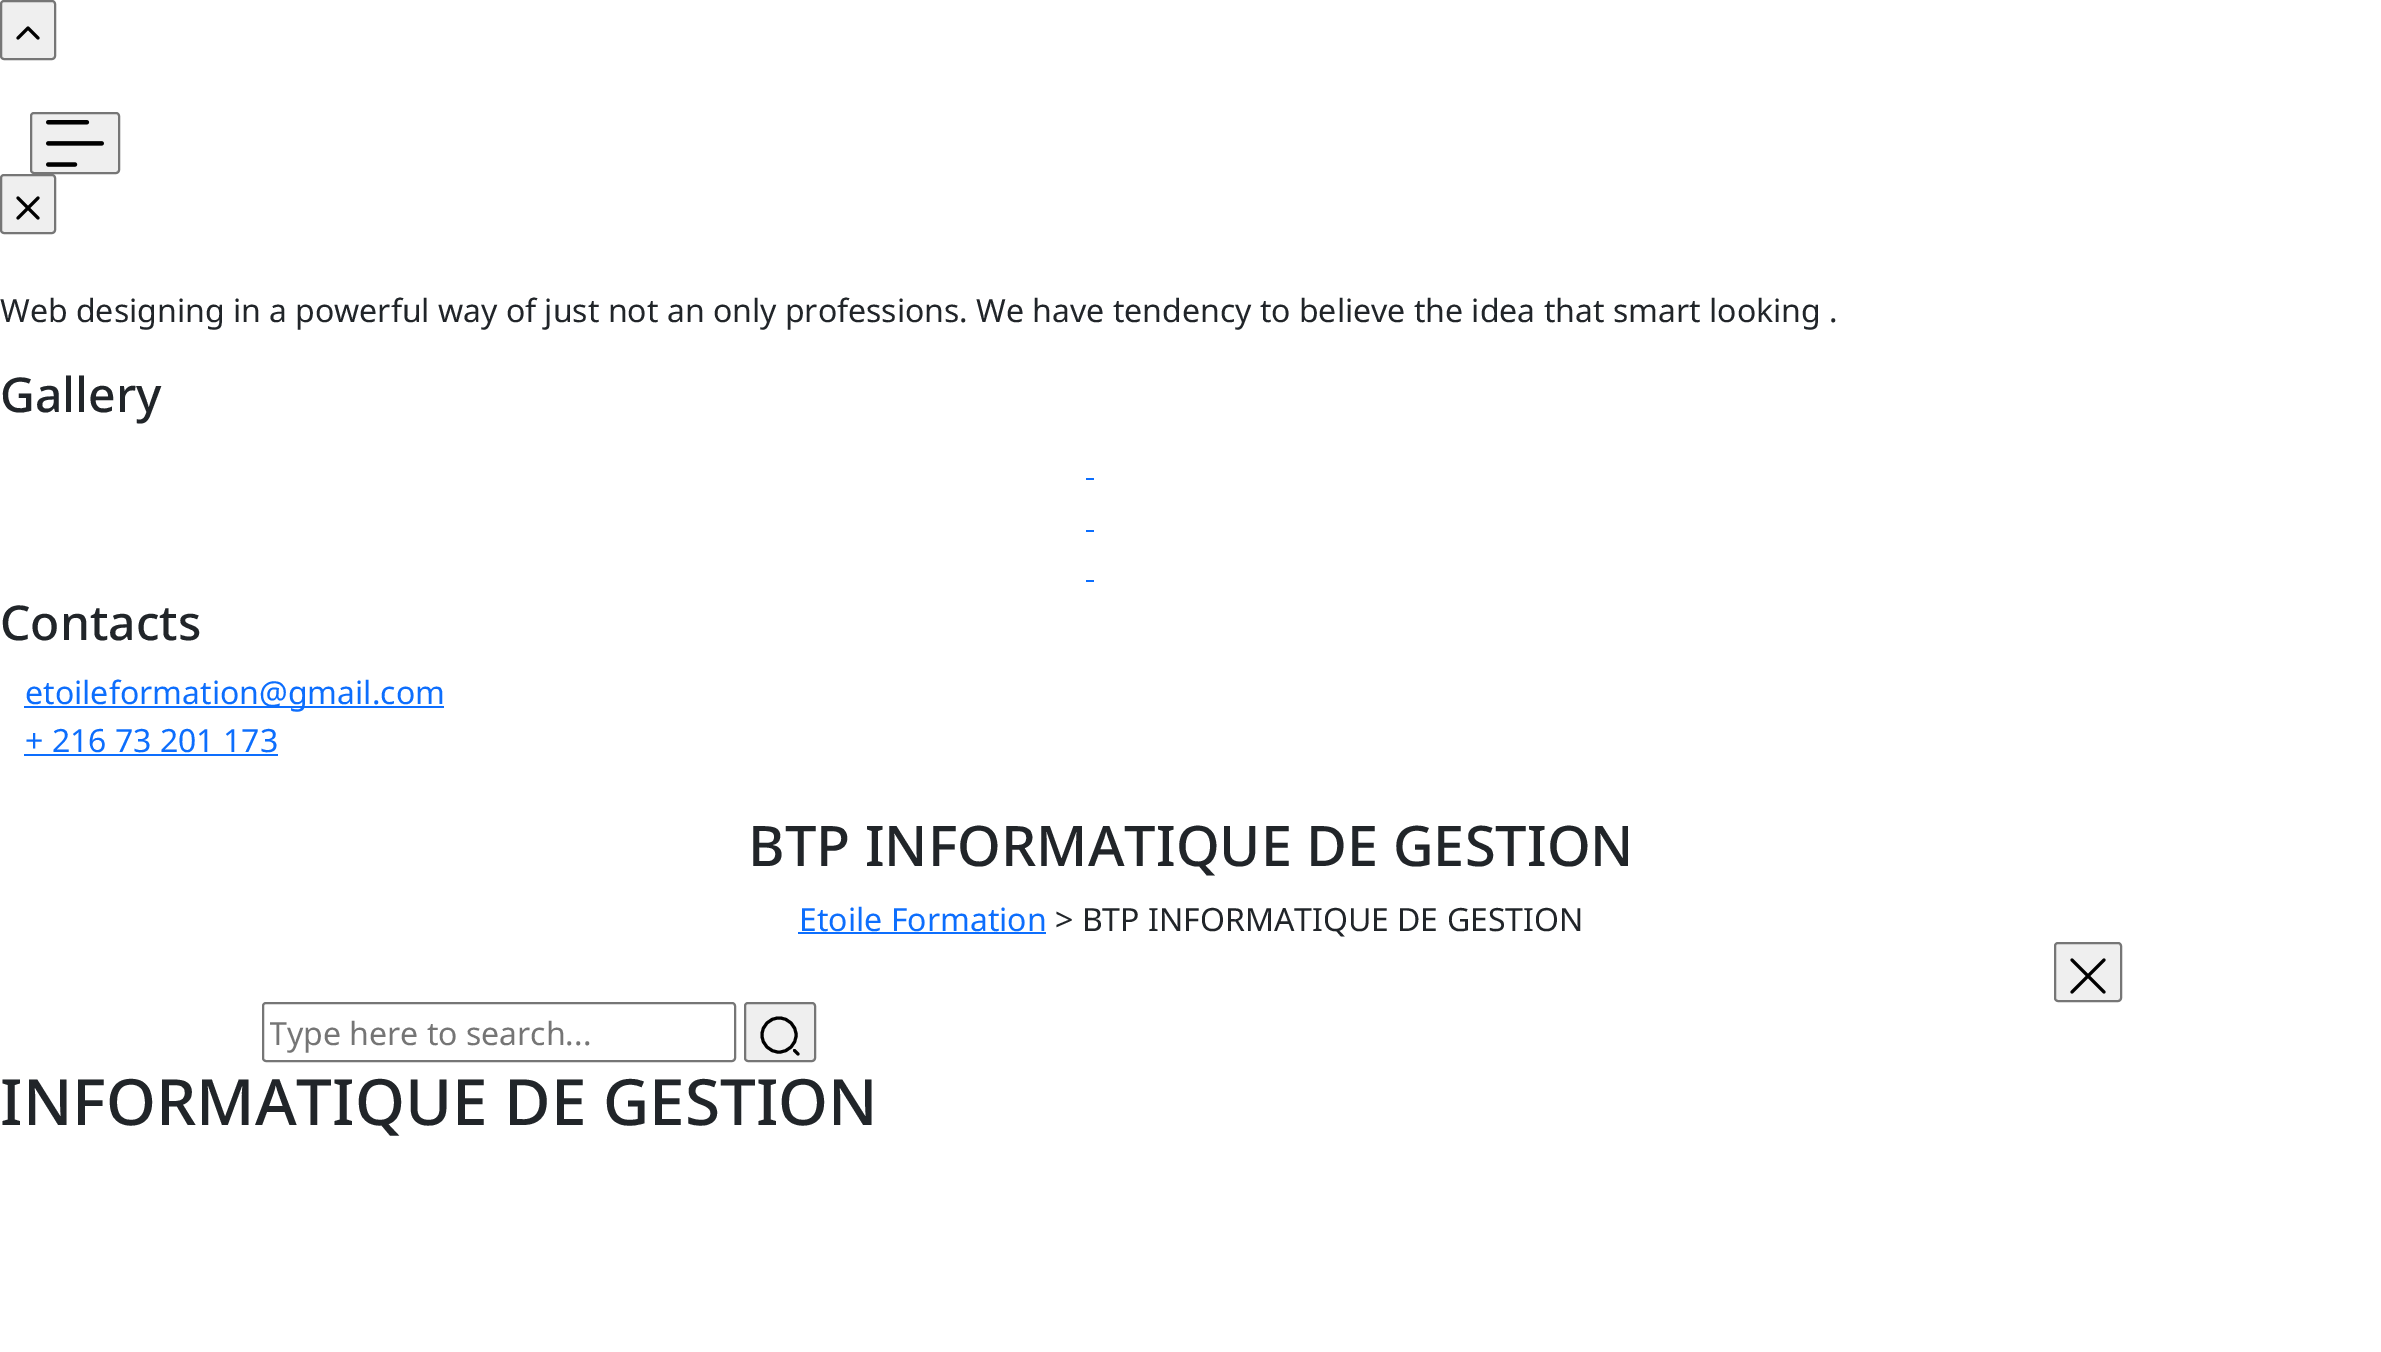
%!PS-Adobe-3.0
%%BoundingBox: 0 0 2381 1352
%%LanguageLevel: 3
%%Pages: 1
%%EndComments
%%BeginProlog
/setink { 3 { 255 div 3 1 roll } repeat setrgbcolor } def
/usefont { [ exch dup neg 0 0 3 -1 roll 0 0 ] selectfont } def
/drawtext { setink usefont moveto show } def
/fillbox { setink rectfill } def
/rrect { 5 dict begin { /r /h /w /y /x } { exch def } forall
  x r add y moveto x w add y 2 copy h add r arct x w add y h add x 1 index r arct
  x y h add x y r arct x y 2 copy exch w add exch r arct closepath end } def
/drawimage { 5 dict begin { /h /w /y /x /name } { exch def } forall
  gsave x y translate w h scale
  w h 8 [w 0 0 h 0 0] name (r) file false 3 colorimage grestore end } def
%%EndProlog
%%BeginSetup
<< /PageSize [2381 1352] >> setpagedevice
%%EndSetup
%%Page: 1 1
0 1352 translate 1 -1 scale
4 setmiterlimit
0 0 2381 1352 255 255 255 fillbox
239 239 239 setink
1 1 54 58 3 rrect gsave fill grestore
118 118 118 setink
2 setlinewidth
stroke
0 0 0 setink
3 setlinewidth
1 setlinecap
1 setlinejoin
38 38 moveto 28 28 lineto 18 38 lineto stroke
239 239 239 setink
31 113 88 60 3 rrect gsave fill grestore
118 118 118 setink
2 setlinewidth
0 setlinecap
0 setlinejoin
stroke
(assets/img1.rgb) 46 120 58 47 drawimage
239 239 239 setink
1 175 54 58 3 rrect gsave fill grestore
118 118 118 setink
stroke
0 0 0 setink
3 setlinewidth
1 setlinecap
1 setlinejoin
38 198 moveto 18 218 lineto 18 198 moveto 38 218 lineto stroke
(Web designing in a powerful way of just not an only professions. We have tendency to believe the idea that smart looking .) 0 322 /NotoSans-Regular 32 33 37 41 drawtext
(Gallery) 0 412 /NotoSans-Medium 48 33 37 41 drawtext
1086 478 8 2 13 110 253 fillbox
1086 530 8 2 13 110 253 fillbox
1086 580 8 2 13 110 253 fillbox
(Contacts) 0 640 /NotoSans-Medium 48 33 37 41 drawtext
24 706 420 2 13 110 253 fillbox
(etoileformation@gmail.com) 25 704 /NotoSans-Regular 32 13 110 253 drawtext
(+ 216 73 201 173) 25 752 /NotoSans-Regular 32 13 110 253 drawtext
24 754 254 2 13 110 253 fillbox
(BTP INFORMATIQUE DE GESTION) 748 866 /NotoSans-Medium 55.9 33 37 41 drawtext
(Etoile Formation) 799 931 /NotoSans-Regular 32 13 110 253 drawtext
798 932 248 2 13 110 253 fillbox
(> BTP INFORMATIQUE DE GESTION) 1055 931 /NotoSans-Regular 32 33 37 41 drawtext
239 239 239 setink
2055 943 66 58 3 rrect gsave fill grestore
118 118 118 setink
2 setlinewidth
0 setlinecap
0 setlinejoin
stroke
0 0 0 setink
3 setlinewidth
1 setlinecap
1 setlinejoin
2104 960 moveto 2072 992 lineto 2072 960 moveto 2104 992 lineto stroke
118 118 118 setink
2 setlinewidth
0 setlinecap
0 setlinejoin
263 1003 472 58 3 rrect stroke
gsave
270 1010 428 44 rectclip
(Type here to search...) 269 1045 /NotoSans-Regular 32 117 117 117 drawtext
grestore
239 239 239 setink
745 1003 70 58 3 rrect gsave fill grestore
118 118 118 setink
stroke
0 0 0 setink
3 setlinewidth
1 setlinecap
1 setlinejoin
779 1052 moveto 788.5 1052 796 1044.5 796 1035 curveto 796 1025.5 788.5 1018 779 1018 curveto 769.5 1018 762 1025.5 762 1035 curveto 762 1044.5 769.5 1052 779 1052 curveto closepath 798 1054 moveto 794.5 1050.5 lineto stroke
(INFORMATIQUE DE GESTION) 0 1125 /NotoSans-Medium 63.8 33 37 41 drawtext
showpage
%%EOF
